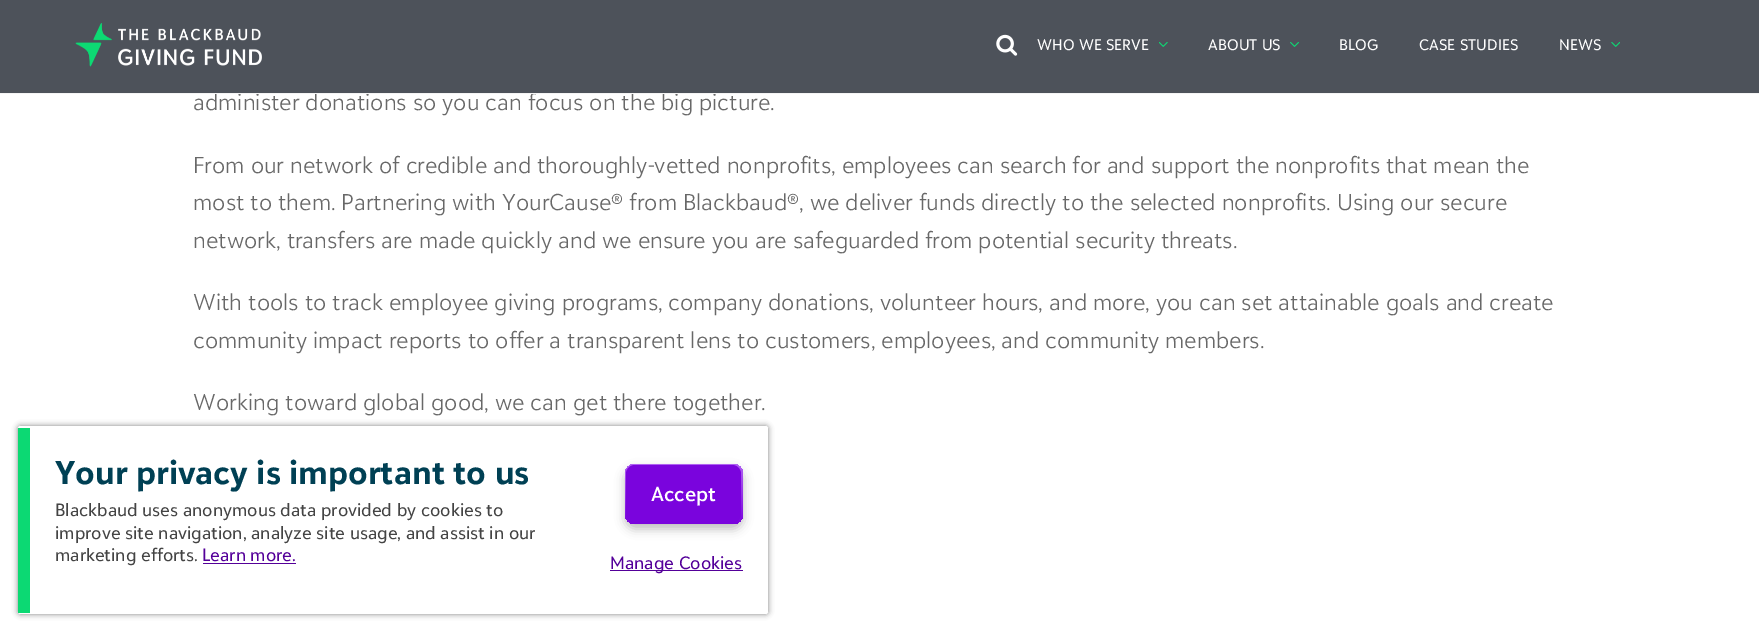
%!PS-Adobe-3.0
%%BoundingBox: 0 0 1759 626
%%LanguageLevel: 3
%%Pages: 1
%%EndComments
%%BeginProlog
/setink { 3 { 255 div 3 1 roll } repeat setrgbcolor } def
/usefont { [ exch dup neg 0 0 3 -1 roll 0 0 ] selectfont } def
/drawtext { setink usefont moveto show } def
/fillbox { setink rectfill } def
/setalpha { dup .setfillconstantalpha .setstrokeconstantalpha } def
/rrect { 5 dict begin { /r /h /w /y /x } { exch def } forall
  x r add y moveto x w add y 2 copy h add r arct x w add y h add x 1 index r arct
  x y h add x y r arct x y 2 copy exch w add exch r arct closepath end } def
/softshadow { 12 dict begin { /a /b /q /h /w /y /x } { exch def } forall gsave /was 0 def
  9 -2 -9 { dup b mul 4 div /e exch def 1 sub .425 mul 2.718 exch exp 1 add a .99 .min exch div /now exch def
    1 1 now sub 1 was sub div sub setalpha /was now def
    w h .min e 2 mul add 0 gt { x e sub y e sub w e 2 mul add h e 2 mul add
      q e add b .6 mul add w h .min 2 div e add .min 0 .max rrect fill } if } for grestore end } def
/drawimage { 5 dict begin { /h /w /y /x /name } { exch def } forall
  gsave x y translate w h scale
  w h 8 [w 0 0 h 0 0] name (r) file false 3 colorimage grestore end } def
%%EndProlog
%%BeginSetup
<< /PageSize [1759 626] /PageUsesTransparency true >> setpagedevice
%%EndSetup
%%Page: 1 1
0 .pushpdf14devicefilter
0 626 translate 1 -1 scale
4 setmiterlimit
0 0 1759 626 255 255 255 fillbox
(administer donations so you can focus on the big picture.) 193 110 /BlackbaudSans-Light 22.5 104 104 104 drawtext
0 93 1759 1 244 244 244 fillbox
0 0 1759 93 77 82 90 fillbox
(assets/img1.rgb) 75 23 187 44 drawimage
(assets/img2.rgb) 996 34 22 22 drawimage
/BlackbaudSans-Black 15 usefont
255 255 255 setink
1037 50 moveto 0.1 0 (WHO WE SERVE) ashow
(assets/img3.rgb) 1159 42 9 5 drawimage
1208 50 moveto 0.1 0 (ABOUT US) ashow
(assets/img4.rgb) 1290 42 9 5 drawimage
1339 50 moveto 0.1 0 (BLOG) ashow
1419 50 moveto 0.1 0 (CASE STUDIES) ashow
1559 50 moveto 0.1 0 (NEWS) ashow
(assets/img5.rgb) 1611 42 9 5 drawimage
(From our network of credible and thoroughly-vetted nonprofits, employees can search for and support the nonprofits that mean the) 193 173 /BlackbaudSans-Light 22.5 104 104 104 drawtext
(most to them. Partnering with YourCause® from Blackbaud®, we deliver funds directly to the selected nonprofits. Using our secure) 193 210 /BlackbaudSans-Light 22.5 104 104 104 drawtext
(network, transfers are made quickly and we ensure you are safeguarded from potential security threats.) 193 248 /BlackbaudSans-Light 22.5 104 104 104 drawtext
(With tools to track employee giving programs, company donations, volunteer hours, and more, you can set attainable goals and create) 193 310 /BlackbaudSans-Light 22.5 104 104 104 drawtext
(community impact reports to offer a transparent lens to customers, employees, and community members.) 193 348 /BlackbaudSans-Light 22.5 104 104 104 drawtext
(Working toward global good, we can get there together.) 193 410 /BlackbaudSans-Light 22.5 104 104 104 drawtext
0 0 0 setink
18 426 750 188 2.5 3 0.5 softshadow
255 255 255 setink
18 426 750 188 2.5 rrect fill
18 428 12 185 12 217 115 fillbox
(Your privacy is important to us) 55 484 /BlackbaudSans-Bold 32.5 0 64 84 drawtext
(Blackbaud uses anonymous data provided by cookies to) 55 516 /BlackbaudSans-Black 17.5 68 68 68 drawtext
(improve site navigation, analyze site usage, and assist in our) 55 539 /BlackbaudSans-Black 17.5 68 68 68 drawtext
(marketing efforts.) 55 561 /BlackbaudSans-Black 17.5 68 68 68 drawtext
(Learn more.) 202 561 /BlackbaudSans-Black 17.5 84 0 153 drawtext
203 563 93 1 84 0 153 fillbox
0 0 0 setink
625 469 118 60 10 5 0.25 softshadow
gsave 625 464 118 60 10 rrect clip newpath
<< /ShadingType 2 /ColorSpace /DeviceRGB /Coords [684 464 684 524] /Extend [true true] /Function << /FunctionType 2 /Domain [0 1] /C0 [0.69 0.38 0.949] /C1 [0.478 0.016 0.867] /N 1 >> >> shfill grestore
122 4 221 setink
626 465 115 58 9 rrect fill
(Accept) 651 501 /BlackbaudSans-SemiBold 20 255 255 255 drawtext
610 570 133 1 84 0 153 fillbox
(Manage Cookies) 610 569 /BlackbaudSans-Black 17.5 84 0 153 drawtext
.poppdf14devicefilter showpage
%%EOF
